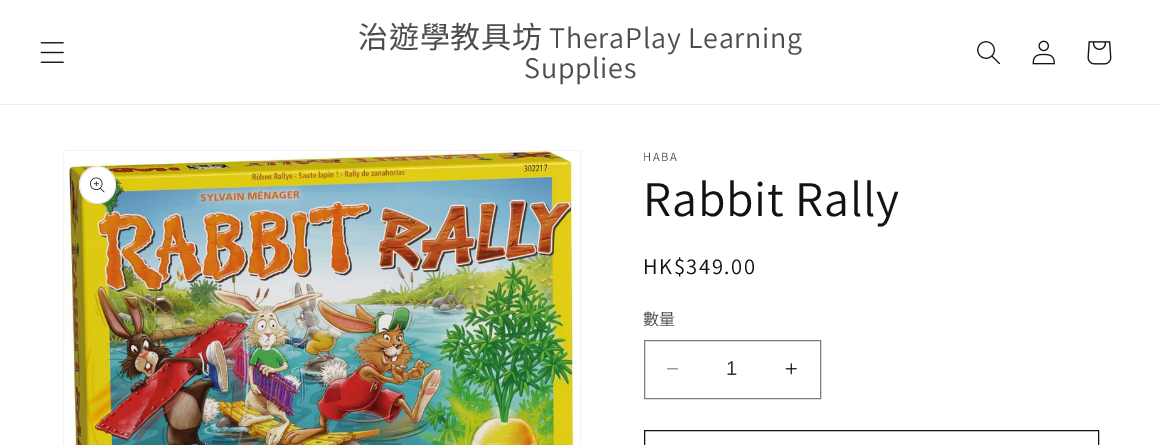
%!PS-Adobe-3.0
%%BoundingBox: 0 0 1161 445
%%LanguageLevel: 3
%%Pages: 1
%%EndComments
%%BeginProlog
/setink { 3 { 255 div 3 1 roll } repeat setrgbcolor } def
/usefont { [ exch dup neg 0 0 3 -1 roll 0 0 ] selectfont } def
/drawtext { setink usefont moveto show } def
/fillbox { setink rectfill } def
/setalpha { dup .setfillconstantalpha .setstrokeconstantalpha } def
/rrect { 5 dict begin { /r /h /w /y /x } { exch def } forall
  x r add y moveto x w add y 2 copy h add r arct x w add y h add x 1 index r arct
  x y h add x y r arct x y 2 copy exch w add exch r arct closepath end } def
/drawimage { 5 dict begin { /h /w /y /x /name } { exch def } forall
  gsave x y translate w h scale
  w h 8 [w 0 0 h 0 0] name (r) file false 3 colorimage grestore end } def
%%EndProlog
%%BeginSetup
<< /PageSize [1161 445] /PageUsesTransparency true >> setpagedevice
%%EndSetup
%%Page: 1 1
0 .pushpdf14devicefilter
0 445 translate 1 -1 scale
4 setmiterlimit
0 0 1161 445 255 255 255 fillbox
0 104 1161 1 236 236 236 fillbox
(assets/img1.rgb) 40 42 24 21 drawimage
/NotoSansCJKTC-Regular 30 usefont
77 77 77 setink
358 48 moveto 0.75 0 (治遊學教具坊) ashow
/Assistant-Regular 30 usefont
549 48 moveto 0.75 0 (TheraPlay Learning) ashow
524 78 moveto 0.75 0 (Supplies) ashow
(assets/img2.rgb) 977 41 23 24 drawimage
(assets/img3.rgb) 1032 40 23 25 drawimage
(assets/img4.rgb) 1087 41 25 24 drawimage
243 243 243 setink
63.5 150.5 517 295 rectstroke
(assets/img5.rgb) 68 151 509 294 drawimage
255 255 255 setink
79 166 37 38 18.5 rrect fill
0.1 setalpha
18 18 18 setink
79.5 166.5 36 37 18 rrect stroke
1 setalpha
(assets/img6.rgb) 90 177 15 16 drawimage
/Assistant-Regular 12.5 usefont
77 77 77 setink
643 161 moveto 1.6 0 (HABA) ashow
/Assistant-Regular 50 usefont
18 18 18 setink
643 216 moveto 0.75 0 (Rabbit Rally) ashow
/Assistant-Regular 22.5 usefont
643 274 moveto 1.6 0 (HK$349.00) ashow
(數量) 643 325 /NotoSansCJKTC-Regular 16 77 77 77 drawtext
(assets/img7.rgb) 667 368 11 2 drawimage
(assets/img8.rgb) 785 363 12 12 drawimage
125 125 125 setink
644.5 340.5 176 58 rectstroke
(1) 726 375 /LiberationSans-Regular 20 54 54 54 drawtext
18 18 18 setink
644.5 430.5 454 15 rectstroke
.poppdf14devicefilter showpage
%%EOF
